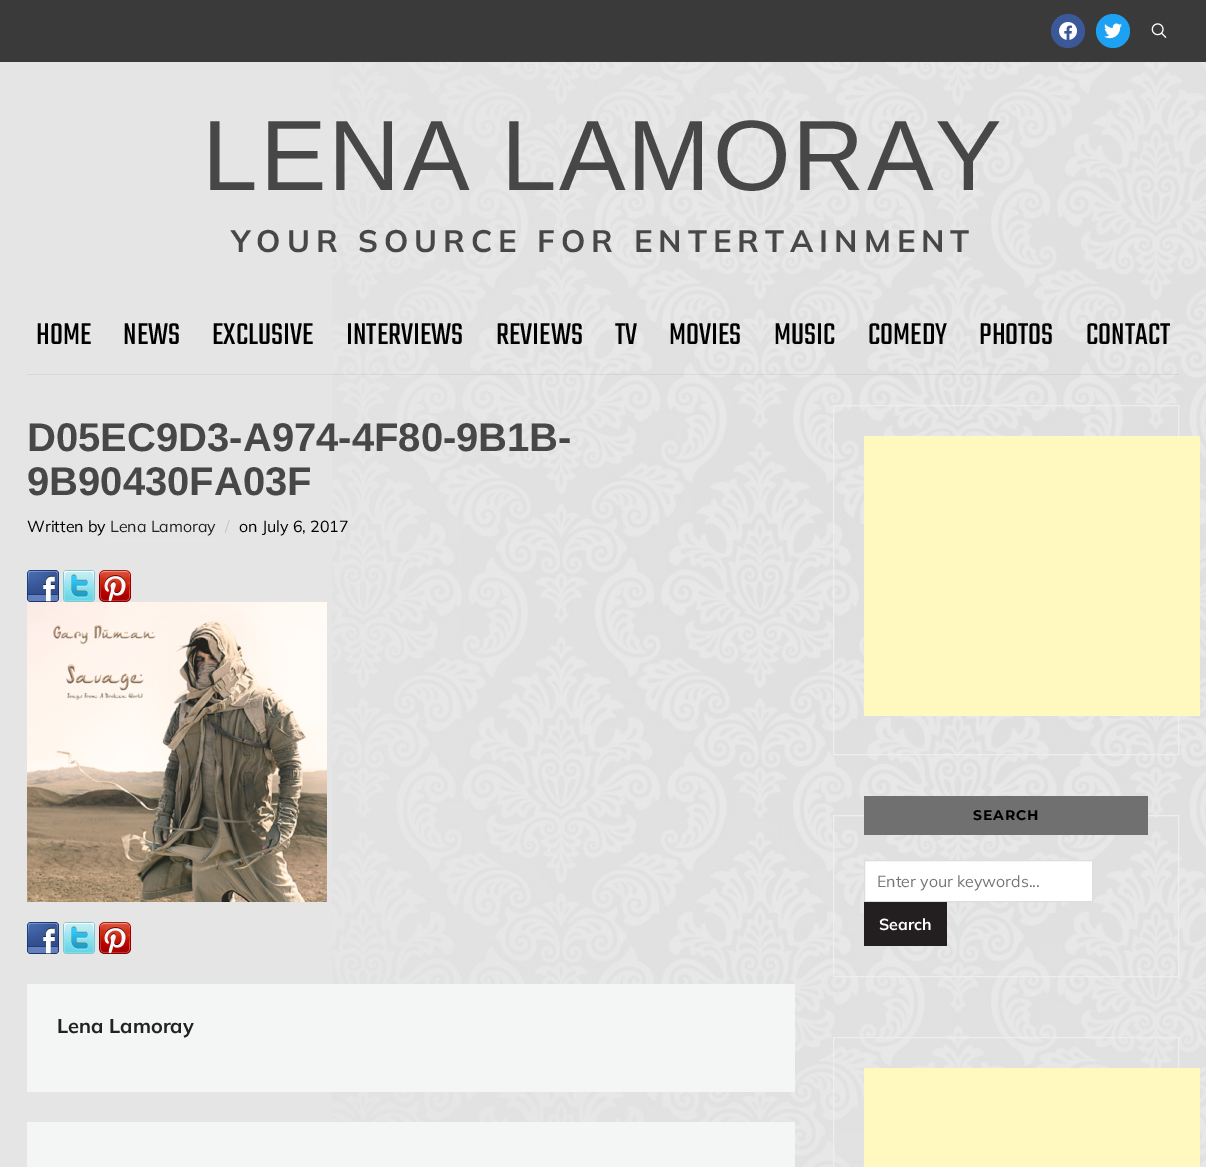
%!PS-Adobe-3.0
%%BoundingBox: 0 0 1206 1167
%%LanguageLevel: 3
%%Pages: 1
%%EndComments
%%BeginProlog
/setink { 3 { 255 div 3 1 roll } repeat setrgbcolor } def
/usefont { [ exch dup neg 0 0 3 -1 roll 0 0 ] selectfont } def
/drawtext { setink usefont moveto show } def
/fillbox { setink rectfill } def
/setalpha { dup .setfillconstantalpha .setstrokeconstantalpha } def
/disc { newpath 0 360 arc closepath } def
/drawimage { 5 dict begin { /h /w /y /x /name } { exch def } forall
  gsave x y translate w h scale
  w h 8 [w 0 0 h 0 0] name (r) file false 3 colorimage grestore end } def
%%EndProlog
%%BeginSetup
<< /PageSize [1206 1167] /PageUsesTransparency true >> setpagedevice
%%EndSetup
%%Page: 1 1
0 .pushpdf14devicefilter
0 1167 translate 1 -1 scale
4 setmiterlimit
0 0 1206 1167 229 229 229 fillbox
(assets/img1.rgb) 332 62 874 1105 drawimage
0 0 1206 62 58 58 58 fillbox
59 89 152 setink
1068 31 17 disc fill
(assets/img2.rgb) 1059 22 18 18 drawimage
29 161 242 setink
1113 31 17 disc fill
(assets/img3.rgb) 1104 23 18 16 drawimage
(assets/img4.rgb) 1151 23 16 15 drawimage
/LiberationSans-Regular 100 usefont
71 71 71 setink
202 190 moveto 2 0 (LENA LAMORAY) ashow
/Mulish-Bold 31 usefont
231 252 moveto 6 0 (YOUR SOURCE FOR ENTERTAINMENT) ashow
0.06 setalpha
27 374 1152 1 0 0 0 fillbox
1 setalpha
(HOME) 36 344 /Teko-Regular 33 0 0 0 drawtext
(NEWS) 123 344 /Teko-Regular 33 0 0 0 drawtext
(EXCLUSIVE) 212 344 /Teko-Regular 33 0 0 0 drawtext
(INTERVIEWS) 346 344 /Teko-Regular 33 0 0 0 drawtext
(REVIEWS) 496 344 /Teko-Regular 33 0 0 0 drawtext
(TV) 615 344 /Teko-Regular 33 0 0 0 drawtext
(MOVIES) 669 344 /Teko-Regular 33 0 0 0 drawtext
(MUSIC) 774 344 /Teko-Regular 33 0 0 0 drawtext
(COMEDY) 868 344 /Teko-Regular 33 0 0 0 drawtext
(PHOTOS) 979 344 /Teko-Regular 33 0 0 0 drawtext
(CONTACT) 1086 344 /Teko-Regular 33 0 0 0 drawtext
(D05EC9D3-A974-4F80-9B1B-) 27 451 /LiberationSans-Bold 40 71 71 71 drawtext
(9B90430FA03F) 27 495 /LiberationSans-Bold 40 71 71 71 drawtext
(Written by) 27 532 /Mulish-Regular 16 0 0 0 drawtext
(Lena Lamoray) 110 532 /Mulish-Regular 16 34 34 34 drawtext
110 539 106 1 232 232 232 fillbox
(/) 225 532 /Mulish-Regular 16 196 199 200 drawtext
(on July 6, 2017) 239 532 /Mulish-Regular 16 0 0 0 drawtext
(assets/img5.rgb) 27 570 32 32 drawimage
(assets/img6.rgb) 63 570 32 32 drawimage
(assets/img7.rgb) 99 570 32 32 drawimage
(assets/img8.rgb) 27 602 300 300 drawimage
(assets/img5.rgb) 27 922 32 32 drawimage
(assets/img6.rgb) 63 922 32 32 drawimage
(assets/img7.rgb) 99 922 32 32 drawimage
27 984 768 108 244 245 245 fillbox
(Lena Lamoray) 57 1033 /Mulish-Bold 20 34 34 34 drawtext
27 1122 768 45 244 245 245 fillbox
238 238 238 setink
833.5 405.5 345 349 rectstroke
864 436 336 280 255 249 192 fillbox
238 238 238 setink
833.5 815.5 345 161 rectstroke
864 796 284 39 112 112 112 fillbox
/Montserrat-Bold 14 usefont
0 0 0 setink
973 820 moveto 1 0 (SEARCH) ashow
255 255 255 setink
864.5 860.5 moveto 1092.5 860.5 lineto 1092.5 901.5 lineto 864.5 901.5 lineto closepath gsave fill grestore
221 221 221 setink
stroke
(Enter your keywords...) 877 887 /Mulish-Regular 16 117 117 117 drawtext
864 902 83 44 35 31 32 fillbox
(Search) 879 930 /Mulish-Bold 16 255 255 255 drawtext
238 238 238 setink
833.5 1037.5 345 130 rectstroke
864 1068 336 99 255 249 192 fillbox
.poppdf14devicefilter showpage
%%EOF
